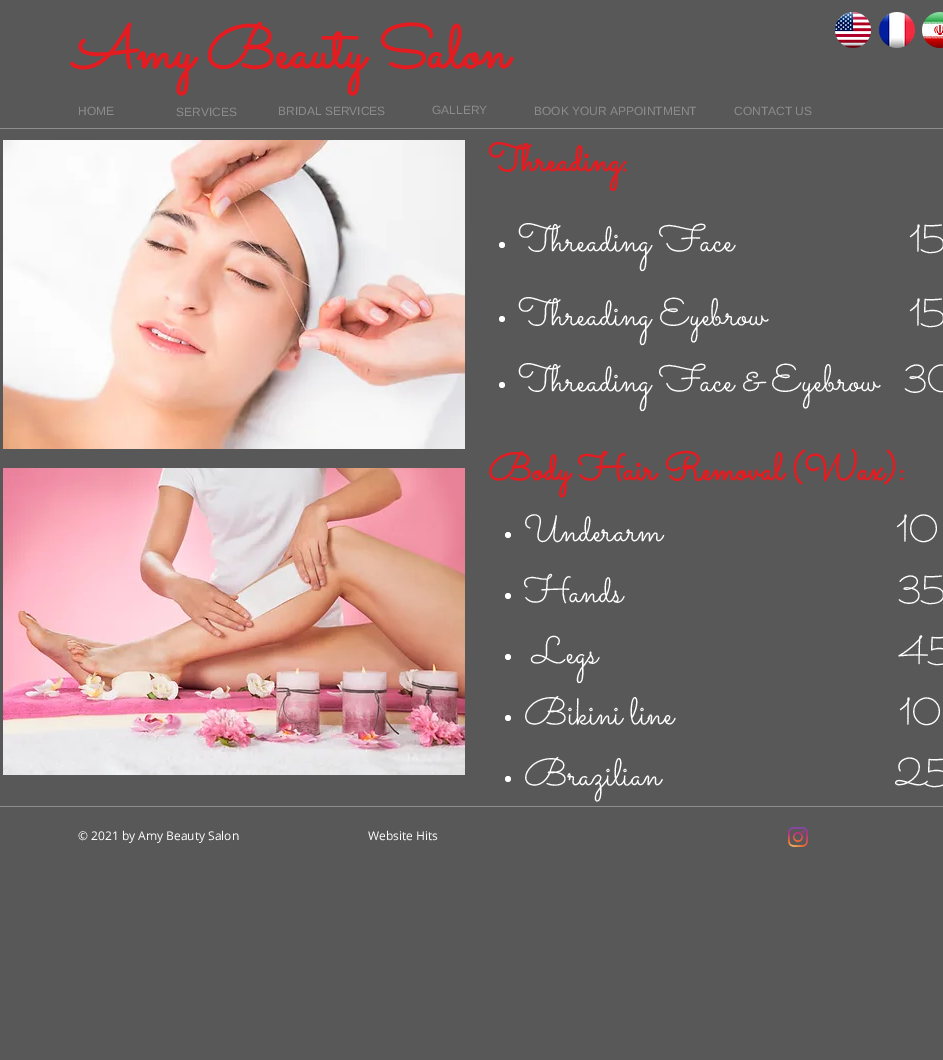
%!PS-Adobe-3.0
%%BoundingBox: 0 0 943 1060
%%LanguageLevel: 3
%%Pages: 1
%%EndComments
%%BeginProlog
/setink { 3 { 255 div 3 1 roll } repeat setrgbcolor } def
/usefont { [ exch dup neg 0 0 3 -1 roll 0 0 ] selectfont } def
/drawtext { setink usefont moveto show } def
/fillbox { setink rectfill } def
/disc { newpath 0 360 arc closepath } def
/drawimage { 5 dict begin { /h /w /y /x /name } { exch def } forall
  gsave x y translate w h scale
  w h 8 [w 0 0 h 0 0] name (r) file false 3 colorimage grestore end } def
%%EndProlog
%%BeginSetup
<< /PageSize [943 1060] >> setpagedevice
%%EndSetup
%%Page: 1 1
0 1060 translate 1 -1 scale
4 setmiterlimit
0 0 943 1060 88 88 88 fillbox
(Amy Beauty Salon) 73 68 /Sacramento-Bold 60 226 28 33 drawtext
(assets/img1.rgb) 835 12 36 36 drawimage
(assets/img2.rgb) 879 12 36 36 drawimage
(assets/img3.rgb) 922 12 21 36 drawimage
(HOME) 78 115 /LiberationSans-Regular 12 141 141 141 drawtext
(SERVICES) 176 116 /LiberationSans-Regular 12 141 141 141 drawtext
(BRIDAL SERVICES) 278 115 /LiberationSans-Regular 12 141 141 141 drawtext
(GALLERY) 432 114 /LiberationSans-Regular 12 141 141 141 drawtext
(BOOK YOUR APPOINTMENT) 534 115 /LiberationSans-Regular 12 141 141 141 drawtext
(CONTACT US) 734 115 /LiberationSans-Regular 12 141 141 141 drawtext
0 128 943 1 141 141 141 fillbox
(assets/img4.rgb) 3 140 462 309 drawimage
(Threading:) 488 171 /Sacramento-Bold 38 226 28 33 drawtext
255 255 255 setink
502 245 3 disc fill
(Threading Face                     15) 518 251 /Sacramento-Regular 38 255 255 255 drawtext
502 319 3 disc fill
(Threading Eyebrow                 15) 518 325 /Sacramento-Regular 38 255 255 255 drawtext
502 385 3 disc fill
(Threading Face & Eyebrow   30) 518 391 /Sacramento-Regular 38 255 255 255 drawtext
(assets/img5.rgb) 3 468 462 307 drawimage
(Body Hair Removal \(Wax\):) 488 480 /Sacramento-Bold 38 226 28 33 drawtext
255 255 255 setink
508 535 3 disc fill
(Underarm                            10) 524 541 /Sacramento-Regular 38 255 255 255 drawtext
508 596 3 disc fill
(Hands                                 35) 524 602 /Sacramento-Regular 38 255 255 255 drawtext
508 657 3 disc fill
(Legs                                    45) 532 663 /Sacramento-Regular 38 255 255 255 drawtext
508 718 3 disc fill
(Bikini line                           10) 524 724 /Sacramento-Regular 38 255 255 255 drawtext
508 779 3 disc fill
(Brazilian                            25) 524 785 /Sacramento-Regular 38 255 255 255 drawtext
0 806 943 1 141 141 141 fillbox
(© 2021 by Amy Beauty Salon) 78 840 /OpenSans-Regular 12 255 255 255 drawtext
(Website Hits) 368 840 /OpenSans-Regular 12 255 255 255 drawtext
(assets/img6.rgb) 788 827 20 20 drawimage
showpage
%%EOF
